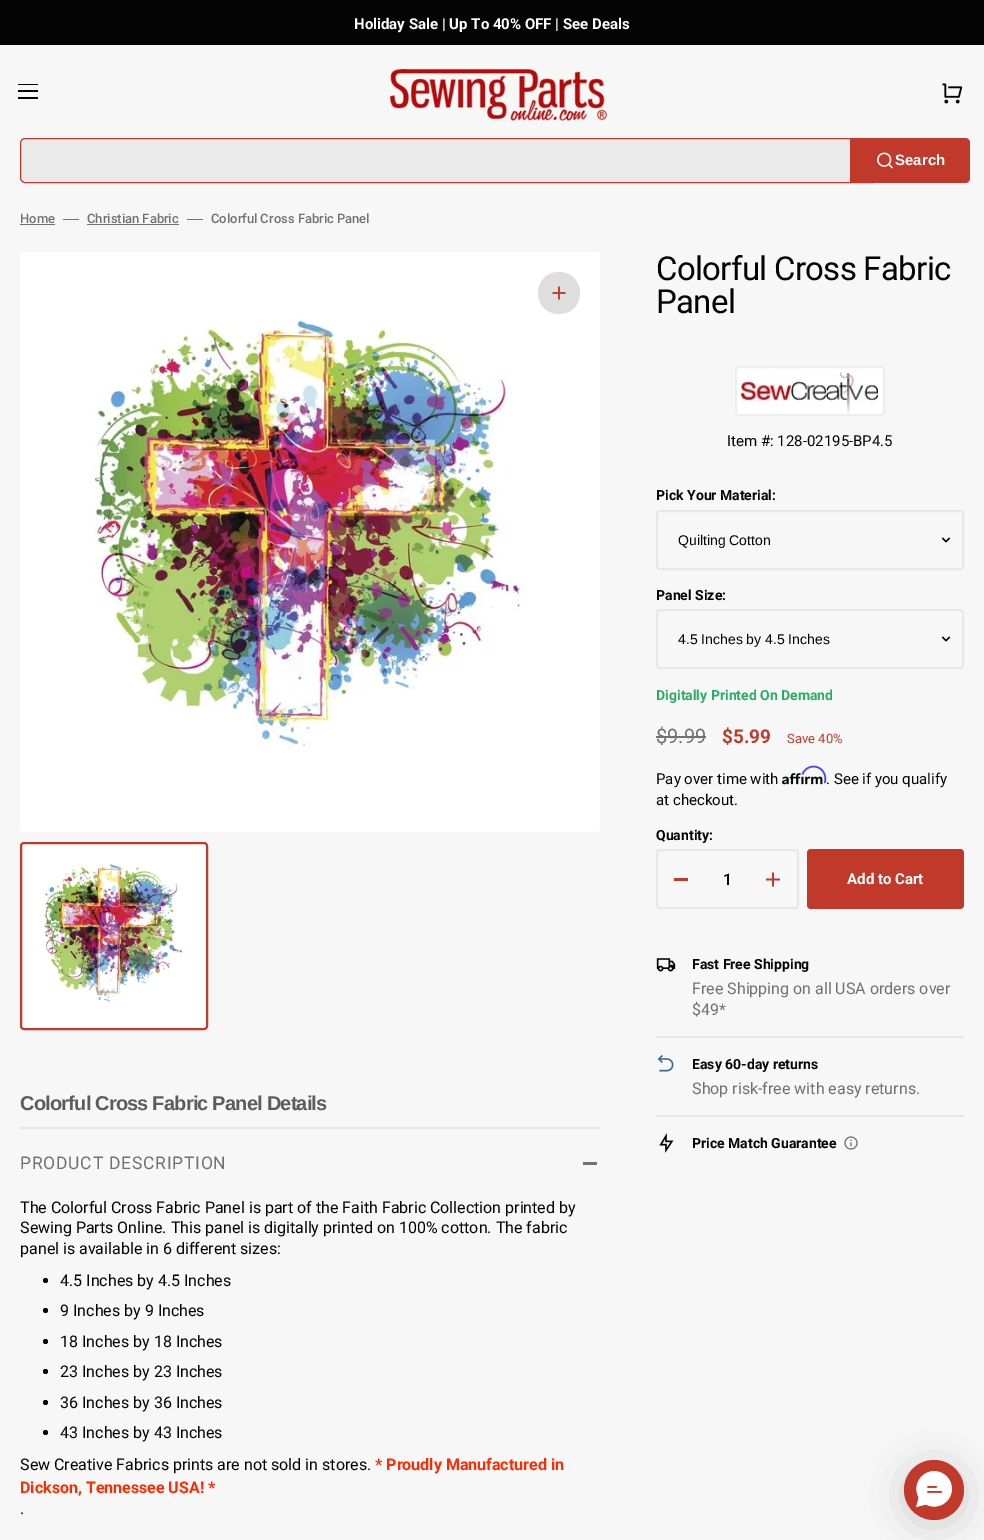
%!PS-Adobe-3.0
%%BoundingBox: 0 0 984 1540
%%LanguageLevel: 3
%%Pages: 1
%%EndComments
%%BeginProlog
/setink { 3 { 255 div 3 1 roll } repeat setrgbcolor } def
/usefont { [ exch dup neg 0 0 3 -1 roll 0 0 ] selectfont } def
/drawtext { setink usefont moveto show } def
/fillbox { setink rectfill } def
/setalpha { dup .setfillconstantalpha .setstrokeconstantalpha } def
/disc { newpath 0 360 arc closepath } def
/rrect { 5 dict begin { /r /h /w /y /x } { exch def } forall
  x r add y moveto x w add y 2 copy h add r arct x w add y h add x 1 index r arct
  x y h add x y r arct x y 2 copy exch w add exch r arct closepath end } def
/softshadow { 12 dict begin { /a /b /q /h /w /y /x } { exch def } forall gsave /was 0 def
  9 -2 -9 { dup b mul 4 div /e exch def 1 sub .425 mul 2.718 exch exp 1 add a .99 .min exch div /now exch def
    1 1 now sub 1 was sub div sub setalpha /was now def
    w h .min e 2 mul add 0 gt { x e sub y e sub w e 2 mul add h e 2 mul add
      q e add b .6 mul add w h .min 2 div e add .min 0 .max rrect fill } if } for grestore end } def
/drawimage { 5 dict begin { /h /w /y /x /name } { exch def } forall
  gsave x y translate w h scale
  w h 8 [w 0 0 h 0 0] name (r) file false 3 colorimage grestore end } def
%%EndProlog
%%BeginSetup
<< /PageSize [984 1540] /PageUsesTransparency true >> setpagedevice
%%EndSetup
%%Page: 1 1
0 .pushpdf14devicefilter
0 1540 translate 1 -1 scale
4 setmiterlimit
0 0 984 1540 247 247 247 fillbox
0 0 984 45 4 4 4 fillbox
(Holiday Sale | Up To 40% OFF | See Deals) 354 29 /Roboto-Bold 15 255 255 255 drawtext
18 84 20 1 4 4 4 fillbox
18 90 20 2 4 4 4 fillbox
18 97 20 2 4 4 4 fillbox
(assets/img1.rgb) 389 68 219 53 drawimage
(assets/img2.rgb) 942 83 21 21 drawimage
255 255 255 setink
20 138 944 45 4 rrect fill
234 234 234 setink
20.5 138.5 857 44 4.5 rrect gsave fill grestore
192 57 43 setink
stroke
850 138 moveto 965 138 lineto 968 138 970 140 970 143 curveto 970 178 lineto 970 181 968 183 965 183 curveto 850 183 lineto closepath fill
(assets/img3.rgb) 877 152 17 17 drawimage
(Search) 895 165 /LiberationSans-Bold 15 255 255 255 drawtext
(Home) 20 223 /Roboto-Medium 13 113 113 113 drawtext
20 224 35 1 113 113 113 fillbox
63 219 16 1 113 113 113 fillbox
(Christian Fabric) 87 223 /Roboto-Medium 13 113 113 113 drawtext
87 224 92 1 113 113 113 fillbox
187 219 16 1 113 113 113 fillbox
(Colorful Cross Fabric Panel) 211 223 /Roboto-Medium 13 113 113 113 drawtext
/Roboto-Regular 33 usefont
4 4 4 setink
656 280 moveto -0.7 0 (Colorful Cross Fabric) ashow
656 313 moveto -0.7 0 (Panel) ashow
255 255 255 setink
736 367 148 48 3 rrect gsave fill grestore
238 238 238 setink
2 setlinewidth
stroke
(assets/img4.rgb) 741 372 137 41 drawimage
(Item #: 128-02195-BP4.5) 727 446 /Roboto-Regular 15 4 4 4 drawtext
(Pick Your Material:) 656 500 /Roboto-Bold 14 4 4 4 drawtext
231 231 231 setink
657 511 306 58 3 rrect stroke
(Quilting Cotton) 678 545 /LiberationSans-Regular 14 4 4 4 drawtext
(assets/img5.rgb) 941 537 10 6 drawimage
(Panel Size:) 656 600 /Roboto-Bold 14 4 4 4 drawtext
231 231 231 setink
657 610 306 58 3 rrect stroke
(4.5 Inches by 4.5 Inches) 678 644 /LiberationSans-Regular 14 4 4 4 drawtext
(assets/img5.rgb) 941 636 10 6 drawimage
(Digitally Printed On Demand) 656 700 /Roboto-Bold 14 39 174 96 drawtext
($9.99) 656 743 /Roboto-Regular 20 113 113 113 drawtext
656 736 50 2 113 113 113 fillbox
($5.99) 722 743 /Roboto-Bold 19 192 57 43 drawtext
(Save 40%) 787 743 /Roboto-Regular 13 192 57 43 drawtext
(Pay over time with) 656 784 /Roboto-Regular 15 4 4 4 drawtext
(assets/img7.rgb) 782 773 41 12 drawimage
(assets/img6.rgb) 801 765 26 19 drawimage
(. See if you qualify) 826 784 /Roboto-Regular 15 4 4 4 drawtext
(at checkout.) 656 805 /Roboto-Regular 15 4 4 4 drawtext
(Quantity:) 656 840 /Roboto-Bold 14 4 4 4 drawtext
231 231 231 setink
657 850 141 58 3 rrect stroke
674 878 14 3 192 57 43 fillbox
(1) 723 885 /Roboto-Medium 16 4 4 4 drawtext
(assets/img8.rgb) 766 872 14 15 drawimage
192 57 43 setink
807 849 157 60 4 rrect fill
(Add to Cart) 847 884 /Roboto-Bold 15 255 255 255 drawtext
656 1036 308 2 231 231 231 fillbox
(assets/img9.rgb) 656 958 20 14 drawimage
(Fast Free Shipping) 692 969 /Roboto-Bold 14 4 4 4 drawtext
(Free Shipping on all USA orders over) 692 994 /Roboto-Regular 16 113 113 113 drawtext
($49*) 692 1015 /Roboto-Regular 16 113 113 113 drawtext
656 1115 308 2 231 231 231 fillbox
(assets/img10.rgb) 657 1055 17 17 drawimage
(Easy 60-day returns) 692 1069 /Roboto-Bold 14 4 4 4 drawtext
(Shop risk-free with easy returns.) 692 1094 /Roboto-Regular 16 113 113 113 drawtext
(assets/img11.rgb) 659 1133 15 20 drawimage
(Price Match Guarantee) 692 1148 /Roboto-Bold 14 4 4 4 drawtext
(assets/img12.rgb) 844 1136 14 14 drawimage
255 255 255 setink
20 252 580 580 4 rrect fill
(assets/img13.rgb) 91 316 431 432 drawimage
247 247 247 setink
559 293 21 disc fill
0.1 setalpha
4 4 4 setink
559 272 moveto 587 272 587 314 559 314 curveto 531 314 531 272 559 272 curveto closepath fill
1 setalpha
(assets/img14.rgb) 552 286 14 14 drawimage
20 842 188 188 255 255 255 fillbox
(assets/img15.rgb) 44 864 139 139 drawimage
192 57 43 setink
21 843 186 186 3 rrect stroke
/LiberationSans-Bold 20 usefont
92 92 92 setink
20 1110 moveto -0.8 0 (Colorful Cross Fabric Panel Details) ashow
20 1127 580 2 231 231 231 fillbox
/Roboto-Regular 17.5 usefont
113 113 113 setink
20 1169 moveto 0.75 0 (PRODUCT DESCRIPTION) ashow
583 1162 14 3 113 113 113 fillbox
(The Colorful Cross Fabric Panel is part of the Faith Fabric Collection printed by) 20 1213 /Roboto-Regular 16 4 4 4 drawtext
(Sewing Parts Online. This panel is digitally printed on 100% cotton. The fabric) 20 1233 /Roboto-Regular 16 4 4 4 drawtext
(panel is available in 6 different sizes:) 20 1254 /Roboto-Regular 16 4 4 4 drawtext
45.5 1280.5 2.5 disc fill
(4.5 Inches by 4.5 Inches) 60 1286 /Roboto-Regular 16 4 4 4 drawtext
45.5 1310.5 2.5 disc fill
(9 Inches by 9 Inches) 60 1316 /Roboto-Regular 16 4 4 4 drawtext
45.5 1341.5 2.5 disc fill
(18 Inches by 18 Inches) 60 1347 /Roboto-Regular 16 4 4 4 drawtext
45.5 1371.5 2.5 disc fill
(23 Inches by 23 Inches) 60 1377 /Roboto-Regular 16 4 4 4 drawtext
45.5 1402.5 2.5 disc fill
(36 Inches by 36 Inches) 60 1408 /Roboto-Regular 16 4 4 4 drawtext
45.5 1432.5 2.5 disc fill
(43 Inches by 43 Inches) 60 1438 /Roboto-Regular 16 4 4 4 drawtext
(Sew Creative Fabrics prints are not sold in stores.) 20 1470 /Roboto-Regular 16 4 4 4 drawtext
(* Proudly Manufactured in) 375 1470 /Roboto-Bold 16 255 42 0 drawtext
(Dickson, Tennessee USA! *) 20 1493 /Roboto-Bold 16 255 42 0 drawtext
(.) 20 1514 /Roboto-Regular 16 4 4 4 drawtext
0 0 0 setink
904 1465 60 60 30 20 0.16 softshadow
192 57 43 setink
934 1490 30 disc fill
(assets/img16.rgb) 916 1471 36 37 drawimage
.poppdf14devicefilter showpage
%%EOF
